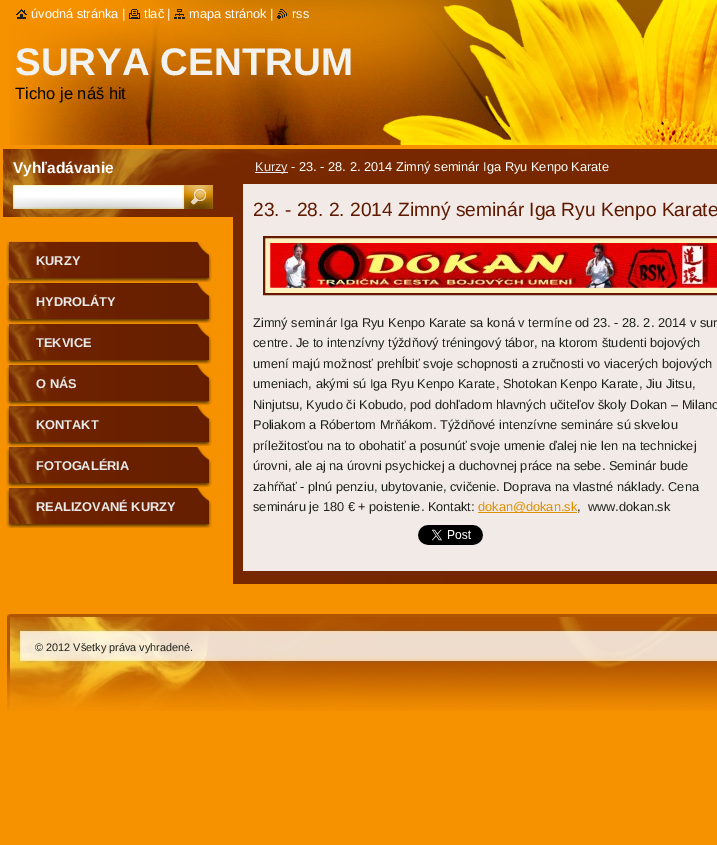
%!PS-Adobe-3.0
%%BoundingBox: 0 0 717 845
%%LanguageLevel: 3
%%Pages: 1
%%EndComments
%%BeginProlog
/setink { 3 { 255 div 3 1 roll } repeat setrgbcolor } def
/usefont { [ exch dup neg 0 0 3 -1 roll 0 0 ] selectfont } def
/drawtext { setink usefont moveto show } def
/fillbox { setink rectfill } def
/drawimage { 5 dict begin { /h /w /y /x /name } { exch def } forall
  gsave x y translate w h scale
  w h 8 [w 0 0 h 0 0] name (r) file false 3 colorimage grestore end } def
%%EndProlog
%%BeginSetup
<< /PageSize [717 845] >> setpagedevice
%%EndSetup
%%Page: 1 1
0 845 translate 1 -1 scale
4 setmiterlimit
0 0 717 845 246 145 0 fillbox
(assets/img5.rgb) 10 0 707 145 drawimage
(assets/img1.rgb) 16 9 11 10 drawimage
(úvodná stránka |) 31 18 /LiberationSans-Regular 12.8 255 255 255 drawtext
(assets/img2.rgb) 129 9 11 10 drawimage
(tlač |) 144 18 /LiberationSans-Regular 12.8 255 255 255 drawtext
(assets/img3.rgb) 174 9 11 10 drawimage
(mapa stránok |) 189 18 /LiberationSans-Regular 12.8 255 255 255 drawtext
(assets/img4.rgb) 277 9 10 10 drawimage
(rss) 292 18 /LiberationSans-Regular 12.8 255 255 255 drawtext
(SURYA CENTRUM) 15 75 /LiberationSans-Bold 38.5 243 242 239 drawtext
(Ticho je náš hit) 15 99 /LiberationSans-Regular 16.5 0 0 0 drawtext
(assets/img6.rgb) 0 146 230 74 drawimage
(Vyhľadávanie) 13 173 /LiberationSans-Bold 15.5 255 255 255 drawtext
(assets/img7.rgb) 13 185 171 24 drawimage
(assets/img8.rgb) 184 185 29 24 drawimage
(assets/img9.rgb) 230 218 487 366 drawimage
(assets/img10.rgb) 230 146 487 72 drawimage
255 172 33 1 233 233 233 fillbox
(Kurzy -) 255 171 /LiberationSans-Regular 12.8 233 233 233 drawtext
(23. - 28. 2. 2014 Zimný seminár Iga Ryu Kenpo Karate) 299 171 /LiberationSans-Regular 12.8 255 255 255 drawtext
243 184 474 387 242 234 230 fillbox
(23. - 28. 2. 2014 Zimný seminár Iga Ryu Kenpo Karate) 253 216 /LiberationSans-Regular 19.2 95 25 0 drawtext
254 241 190 setink
264 237 moveto 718 237 lineto 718 294 lineto 264 294 lineto closepath gsave fill grestore
102 24 0 setink
2 setlinewidth
stroke
(assets/img11.rgb) 270 243 447 45 drawimage
(Zimný seminár Iga Ryu Kenpo Karate sa koná v termíne od 23. - 28. 2. 2014 v sur) 253 327 /LiberationSans-Regular 12.8 31 34 28 drawtext
(centre. Je to intenzívny týždňový tréningový tábor, na ktorom študenti bojových) 253 347 /LiberationSans-Regular 12.8 31 34 28 drawtext
(umení majú možnosť prehĺbiť svoje schopnosti a zručnosti vo viacerých bojových) 253 368 /LiberationSans-Regular 12.8 31 34 28 drawtext
(umeniach, akými sú Iga Ryu Kenpo Karate, Shotokan Kenpo Karate, Jiu Jitsu,) 253 388 /LiberationSans-Regular 12.8 31 34 28 drawtext
(Ninjutsu, Kyudo či Kobudo, pod dohľadom hlavných učiteľov školy Dokan – Milano) 253 409 /LiberationSans-Regular 12.8 31 34 28 drawtext
(Poliakom a Róbertom Mrňákom. Týždňové intenzívne semináre sú skvelou) 253 429 /LiberationSans-Regular 12.8 31 34 28 drawtext
(príležitosťou na to obohatiť a posunúť svoje umenie ďalej nie len na technickej) 253 450 /LiberationSans-Regular 12.8 31 34 28 drawtext
(úrovni, ale aj na úrovni psychickej a duchovnej práce na sebe. Seminár bude) 253 470 /LiberationSans-Regular 12.8 31 34 28 drawtext
(zahŕňať - plnú penziu, ubytovanie, cvičenie. Doprava na vlastné náklady. Cena) 253 491 /LiberationSans-Regular 12.8 31 34 28 drawtext
(semináru je 180 € + poistenie. Kontakt:) 253 511 /LiberationSans-Regular 12.8 31 34 28 drawtext
478 512 99 1 223 143 0 fillbox
(dokan@dokan.sk) 478 511 /LiberationSans-Regular 12.8 223 143 0 drawtext
(,  www.dokan.sk) 577 511 /LiberationSans-Regular 12.8 31 34 28 drawtext
(assets/img12.rgb) 418 525 65 20 drawimage
(assets/img13.rgb) 230 584 487 3 drawimage
(assets/img14.rgb) 6 241 206 41 drawimage
(KURZY) 36 265 /LiberationSans-Bold 12.8 233 233 233 drawtext
(assets/img14.rgb) 6 282 206 41 drawimage
(HYDROLÁTY) 36 306 /LiberationSans-Bold 12.8 233 233 233 drawtext
(assets/img14.rgb) 6 323 206 41 drawimage
(TEKVICE) 36 347 /LiberationSans-Bold 12.8 233 233 233 drawtext
(assets/img14.rgb) 6 364 206 41 drawimage
(O NÁS) 36 388 /LiberationSans-Bold 12.8 233 233 233 drawtext
(assets/img14.rgb) 6 405 206 41 drawimage
(KONTAKT) 36 429 /LiberationSans-Bold 12.8 233 233 233 drawtext
(assets/img14.rgb) 6 446 206 41 drawimage
(FOTOGALÉRIA) 36 470 /LiberationSans-Bold 12.8 233 233 233 drawtext
(assets/img14.rgb) 6 487 206 41 drawimage
(REALIZOVANÉ KURZY) 36 511 /LiberationSans-Bold 12.8 233 233 233 drawtext
(assets/img15.rgb) 7 614 710 97 drawimage
(© 2012 Všetky práva vyhradené.) 35 651 /LiberationSans-Regular 10.9 31 34 28 drawtext
showpage
%%EOF
